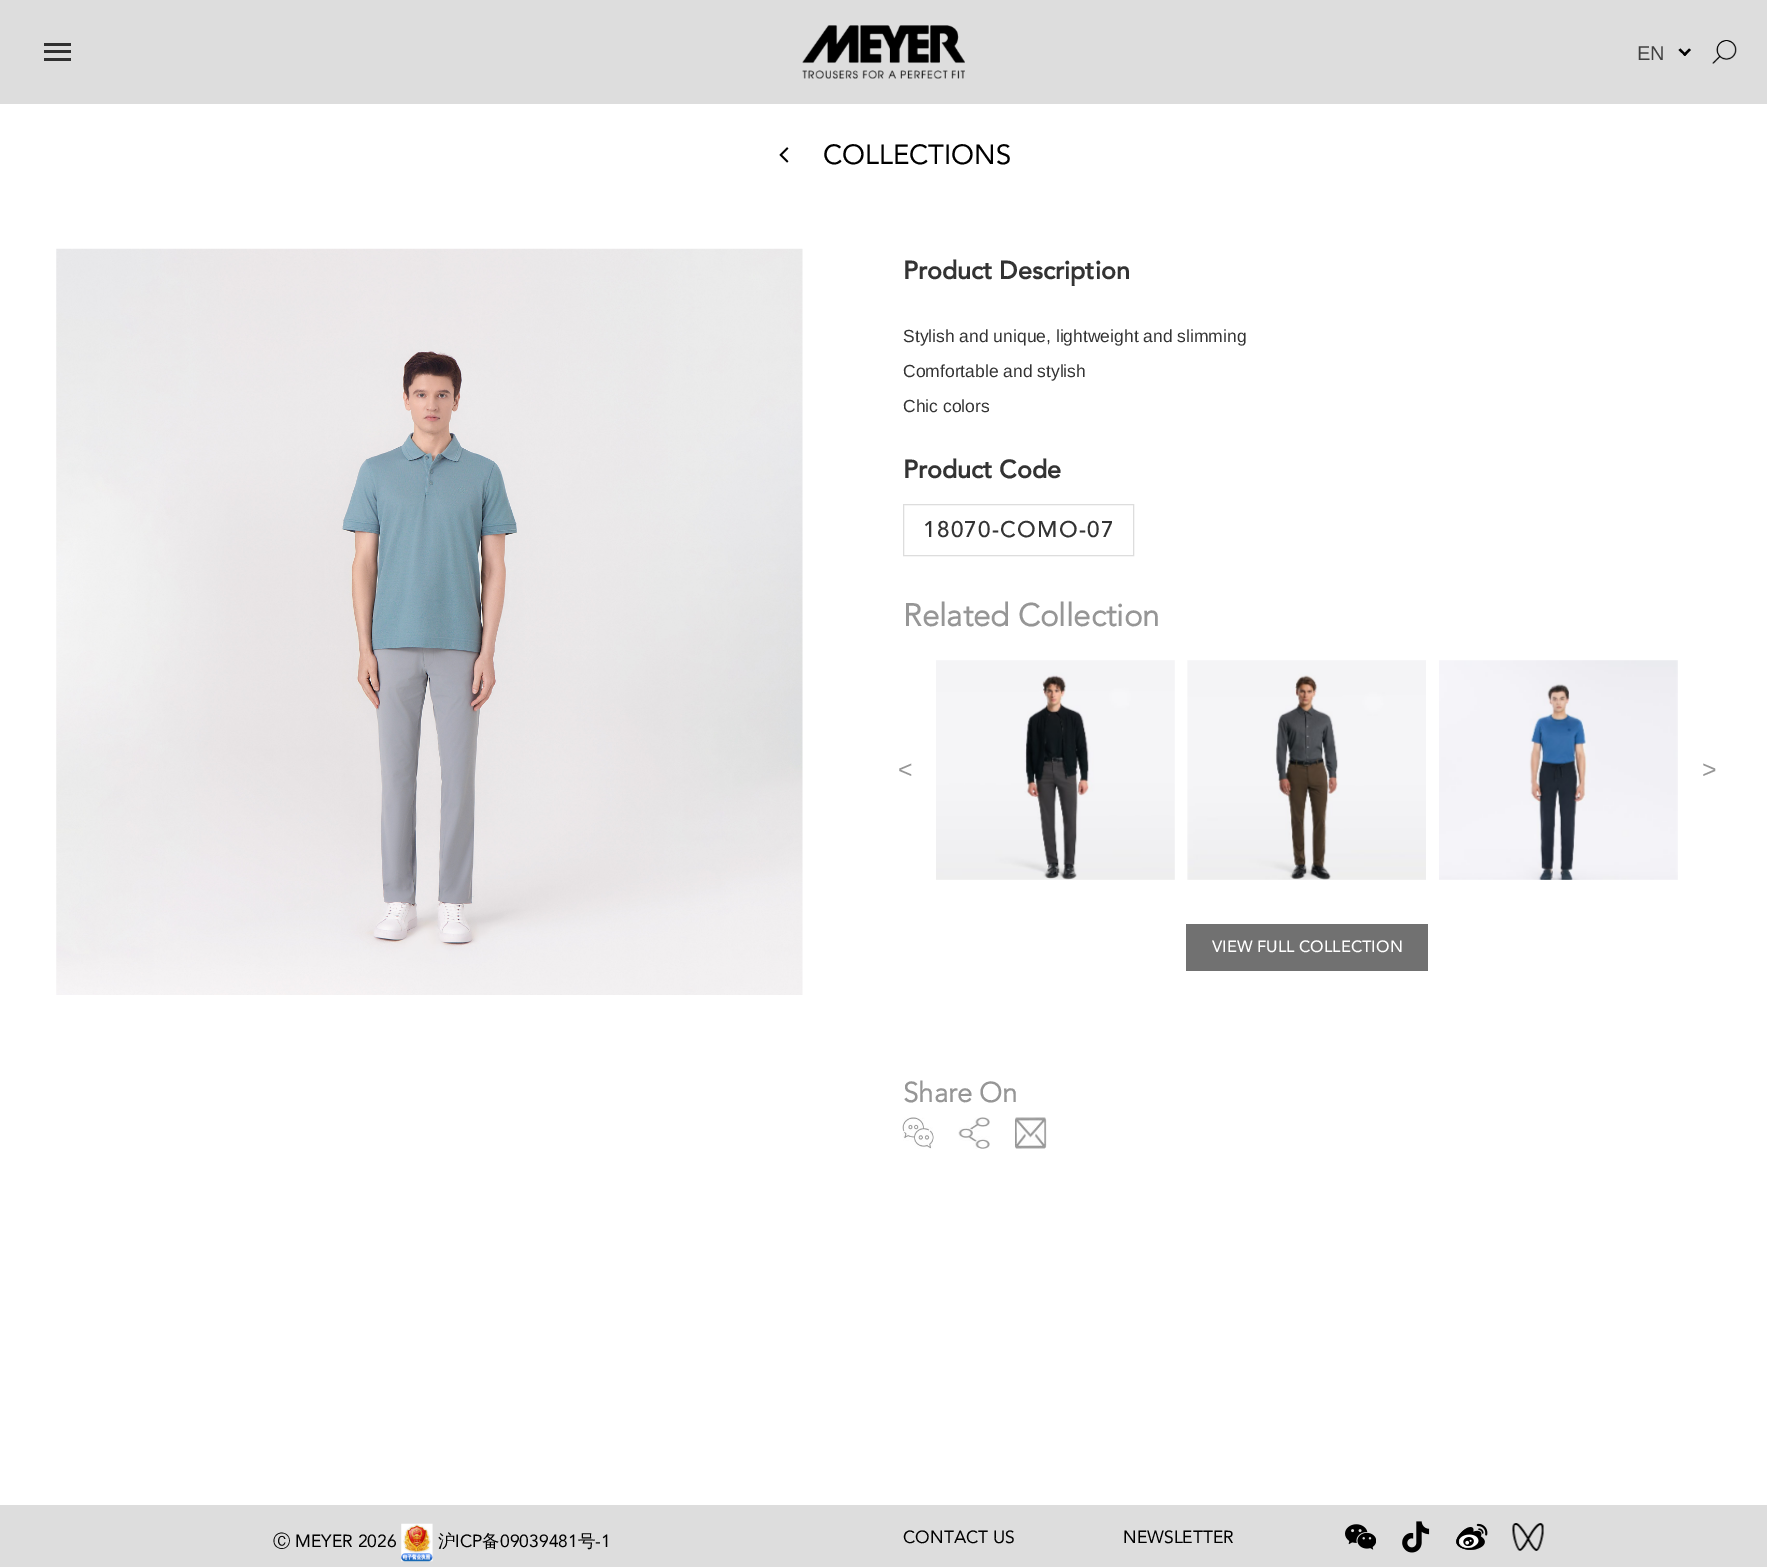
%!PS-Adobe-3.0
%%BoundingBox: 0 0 1767 1567
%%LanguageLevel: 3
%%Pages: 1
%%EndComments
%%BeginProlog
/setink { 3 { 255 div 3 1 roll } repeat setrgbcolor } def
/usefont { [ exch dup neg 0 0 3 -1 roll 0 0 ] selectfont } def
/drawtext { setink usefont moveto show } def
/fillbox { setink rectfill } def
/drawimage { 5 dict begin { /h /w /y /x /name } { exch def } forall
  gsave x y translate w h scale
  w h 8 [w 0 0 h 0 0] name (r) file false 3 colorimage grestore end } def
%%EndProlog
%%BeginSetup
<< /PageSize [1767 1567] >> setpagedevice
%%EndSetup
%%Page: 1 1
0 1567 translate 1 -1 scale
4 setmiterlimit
0 0 1767 1567 255 255 255 fillbox
0 0 1767 104 221 221 221 fillbox
44 50 27 3 48 48 48 fillbox
44 43 27 3 48 48 48 fillbox
44 58 27 3 48 48 48 fillbox
(assets/img1.rgb) 802 25 163 54 drawimage
(EN) 1637 60 /LiberationSans-Regular 20 63 63 63 drawtext
0 0 0 setink
1689 48.5 moveto 1691 50 lineto 1685 56 lineto 1683 54.5 lineto closepath fill
1680.5 48.5 moveto 1686.5 54.5 lineto 1685 56 lineto 1678.5 50 lineto closepath fill
(assets/img2.rgb) 1712 40 25 24 drawimage
(assets/img3.rgb) 779 147 10 16 drawimage
(COLLECTIONS) 823 164 /Avenir-Regular 27.5 0 0 0 drawtext
(assets/img4.rgb) 56 248 747 747 drawimage
(Product Description) 903 279 /Avenir-Bold 25 51 51 51 drawtext
(Stylish and unique, lightweight and slimming) 903 342 /LiberationSans-Regular 17.5 51 51 51 drawtext
(Comfortable and stylish) 903 377 /LiberationSans-Regular 17.5 51 51 51 drawtext
(Chic colors) 903 412 /LiberationSans-Regular 17.5 51 51 51 drawtext
(Product Code) 903 478 /Avenir-Bold 25 51 51 51 drawtext
221 221 221 setink
903.5 504.5 230 51 rectstroke
/Avenir-Medium 22.5 usefont
51 51 51 setink
923 537 moveto 1.25 0 (18070-COMO-07) ashow
(Related Collection) 903 626 /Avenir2-Bold 31.25 150 150 150 drawtext
(assets/img5.rgb) 936 660 239 220 drawimage
(assets/img6.rgb) 1187 660 239 220 drawimage
(assets/img7.rgb) 1439 660 239 220 drawimage
(<) 898 778 /LiberationSans-Regular 25 150 150 150 drawtext
(>) 1702 778 /LiberationSans-Regular 25 150 150 150 drawtext
1186 924 242 47 113 113 113 fillbox
(VIEW FULL COLLECTION) 1212 952 /Avenir-Medium 16.25 255 255 255 drawtext
(Share On) 903 1102 /Avenir2-Bold 27.5 150 150 150 drawtext
(assets/img8.rgb) 902 1117 32 32 drawimage
(assets/img9.rgb) 958 1117 32 32 drawimage
(assets/img10.rgb) 1015 1117 32 32 drawimage
0 1505 1767 62 221 221 221 fillbox
(Ⓒ) 273 1547 /WenQuanYiZenHei-Medium 17.5 0 0 0 drawtext
(MEYER 2026) 295 1547 /Avenir-Regular 17.5 0 0 0 drawtext
(assets/img11.rgb) 401 1523 32 39 drawimage
(沪) 438 1547 /WenQuanYiZenHei-Medium 17.5 0 0 0 drawtext
(ICP) 455 1547 /Avenir-Regular 17.5 0 0 0 drawtext
(备) 482 1547 /WenQuanYiZenHei-Medium 17.5 0 0 0 drawtext
(09039481) 500 1547 /Avenir-Regular 17.5 0 0 0 drawtext
(号) 578 1547 /WenQuanYiZenHei-Medium 17.5 0 0 0 drawtext
(-1) 595 1547 /Avenir-Regular 17.5 0 0 0 drawtext
(CONTACT US) 903 1543 /Avenir-Regular 17.5 0 0 0 drawtext
(NEWSLETTER) 1123 1543 /Avenir-Regular 17.5 0 0 0 drawtext
(assets/img12.rgb) 1345 1524 31 26 drawimage
(assets/img13.rgb) 1402 1521 28 32 drawimage
(assets/img14.rgb) 1456 1523 32 27 drawimage
(assets/img15.rgb) 1512 1523 32 28 drawimage
showpage
%%EOF
